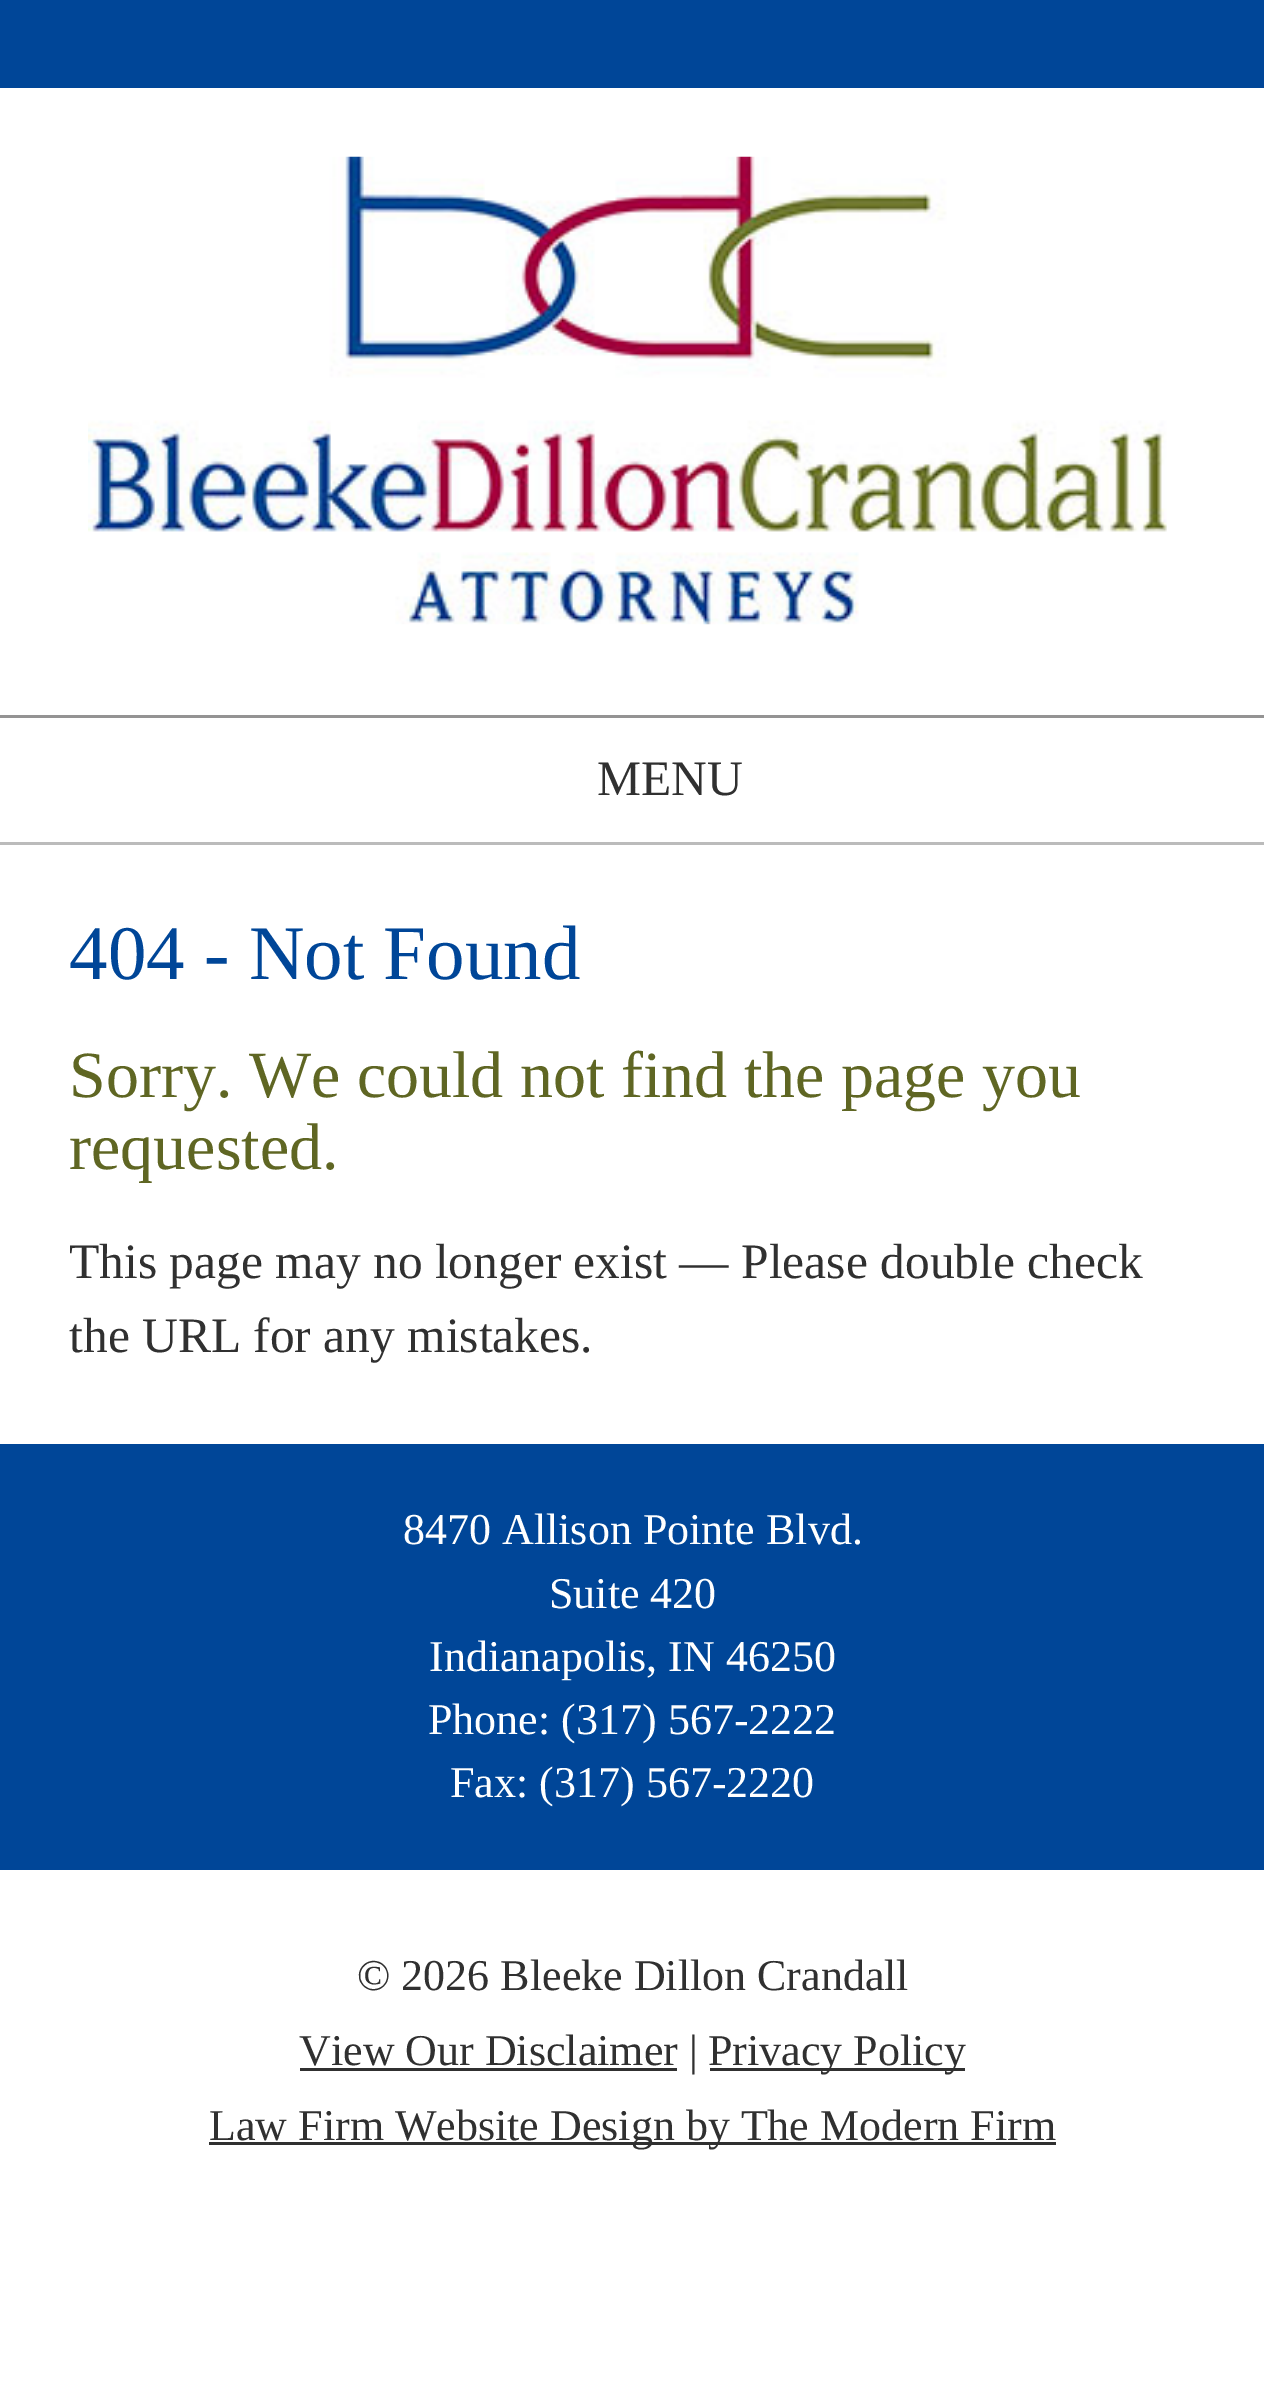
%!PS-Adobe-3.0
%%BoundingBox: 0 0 1264 2391
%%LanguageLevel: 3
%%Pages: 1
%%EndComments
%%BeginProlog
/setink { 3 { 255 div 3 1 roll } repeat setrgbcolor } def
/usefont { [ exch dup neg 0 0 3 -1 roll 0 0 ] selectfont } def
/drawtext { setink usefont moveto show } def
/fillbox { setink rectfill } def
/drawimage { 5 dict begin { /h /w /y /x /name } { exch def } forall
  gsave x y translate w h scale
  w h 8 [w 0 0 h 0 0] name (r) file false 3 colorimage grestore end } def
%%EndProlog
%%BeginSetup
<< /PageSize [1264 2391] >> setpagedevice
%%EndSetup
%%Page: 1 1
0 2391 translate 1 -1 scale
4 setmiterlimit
0 0 1264 2391 255 255 255 fillbox
0 0 1264 88 0 70 152 fillbox
0 715 1264 3 148 147 147 fillbox
(assets/img1.rgb) 88 156 1079 469 drawimage
0 842 1264 3 187 187 187 fillbox
(MENU) 597 795 /LiberationSerif-Regular 49.5 48 48 48 drawtext
(404 - Not Found) 69 979 /LiberationSerif-Regular 77 0 70 152 drawtext
(Sorry. We could not find the page you) 69 1097 /LiberationSerif-Regular 66 95 102 35 drawtext
(requested.) 69 1169 /LiberationSerif-Regular 66 95 102 35 drawtext
(This page may no longer exist — Please double check) 69 1278 /LiberationSerif-Regular 49.5 48 48 48 drawtext
(the URL for any mistakes.) 69 1352 /LiberationSerif-Regular 49.5 48 48 48 drawtext
0 1444 1264 426 0 70 152 fillbox
(8470 Allison Pointe Blvd.) 403 1544 /LiberationSerif-Regular 44 255 255 255 drawtext
(Suite 420) 549 1608 /LiberationSerif-Regular 44 255 255 255 drawtext
(Indianapolis, IN 46250) 429 1671 /LiberationSerif-Regular 44 255 255 255 drawtext
(Phone: \(317\) 567-2222) 428 1734 /LiberationSerif-Regular 44 255 255 255 drawtext
(Fax: \(317\) 567-2220) 450 1797 /LiberationSerif-Regular 44 255 255 255 drawtext
(© 2026 Bleeke Dillon Crandall) 357 1990 /LiberationSerif-Regular 44 48 48 48 drawtext
300 2068 377 3 48 48 48 fillbox
(View Our Disclaimer |) 299 2065 /LiberationSerif-Regular 44 48 48 48 drawtext
710 2068 255 3 48 48 48 fillbox
(Privacy Policy) 708 2065 /LiberationSerif-Regular 44 48 48 48 drawtext
209 2142 847 3 48 48 48 fillbox
(Law Firm Website Design by The Modern Firm) 209 2140 /LiberationSerif-Regular 44 48 48 48 drawtext
showpage
%%EOF
